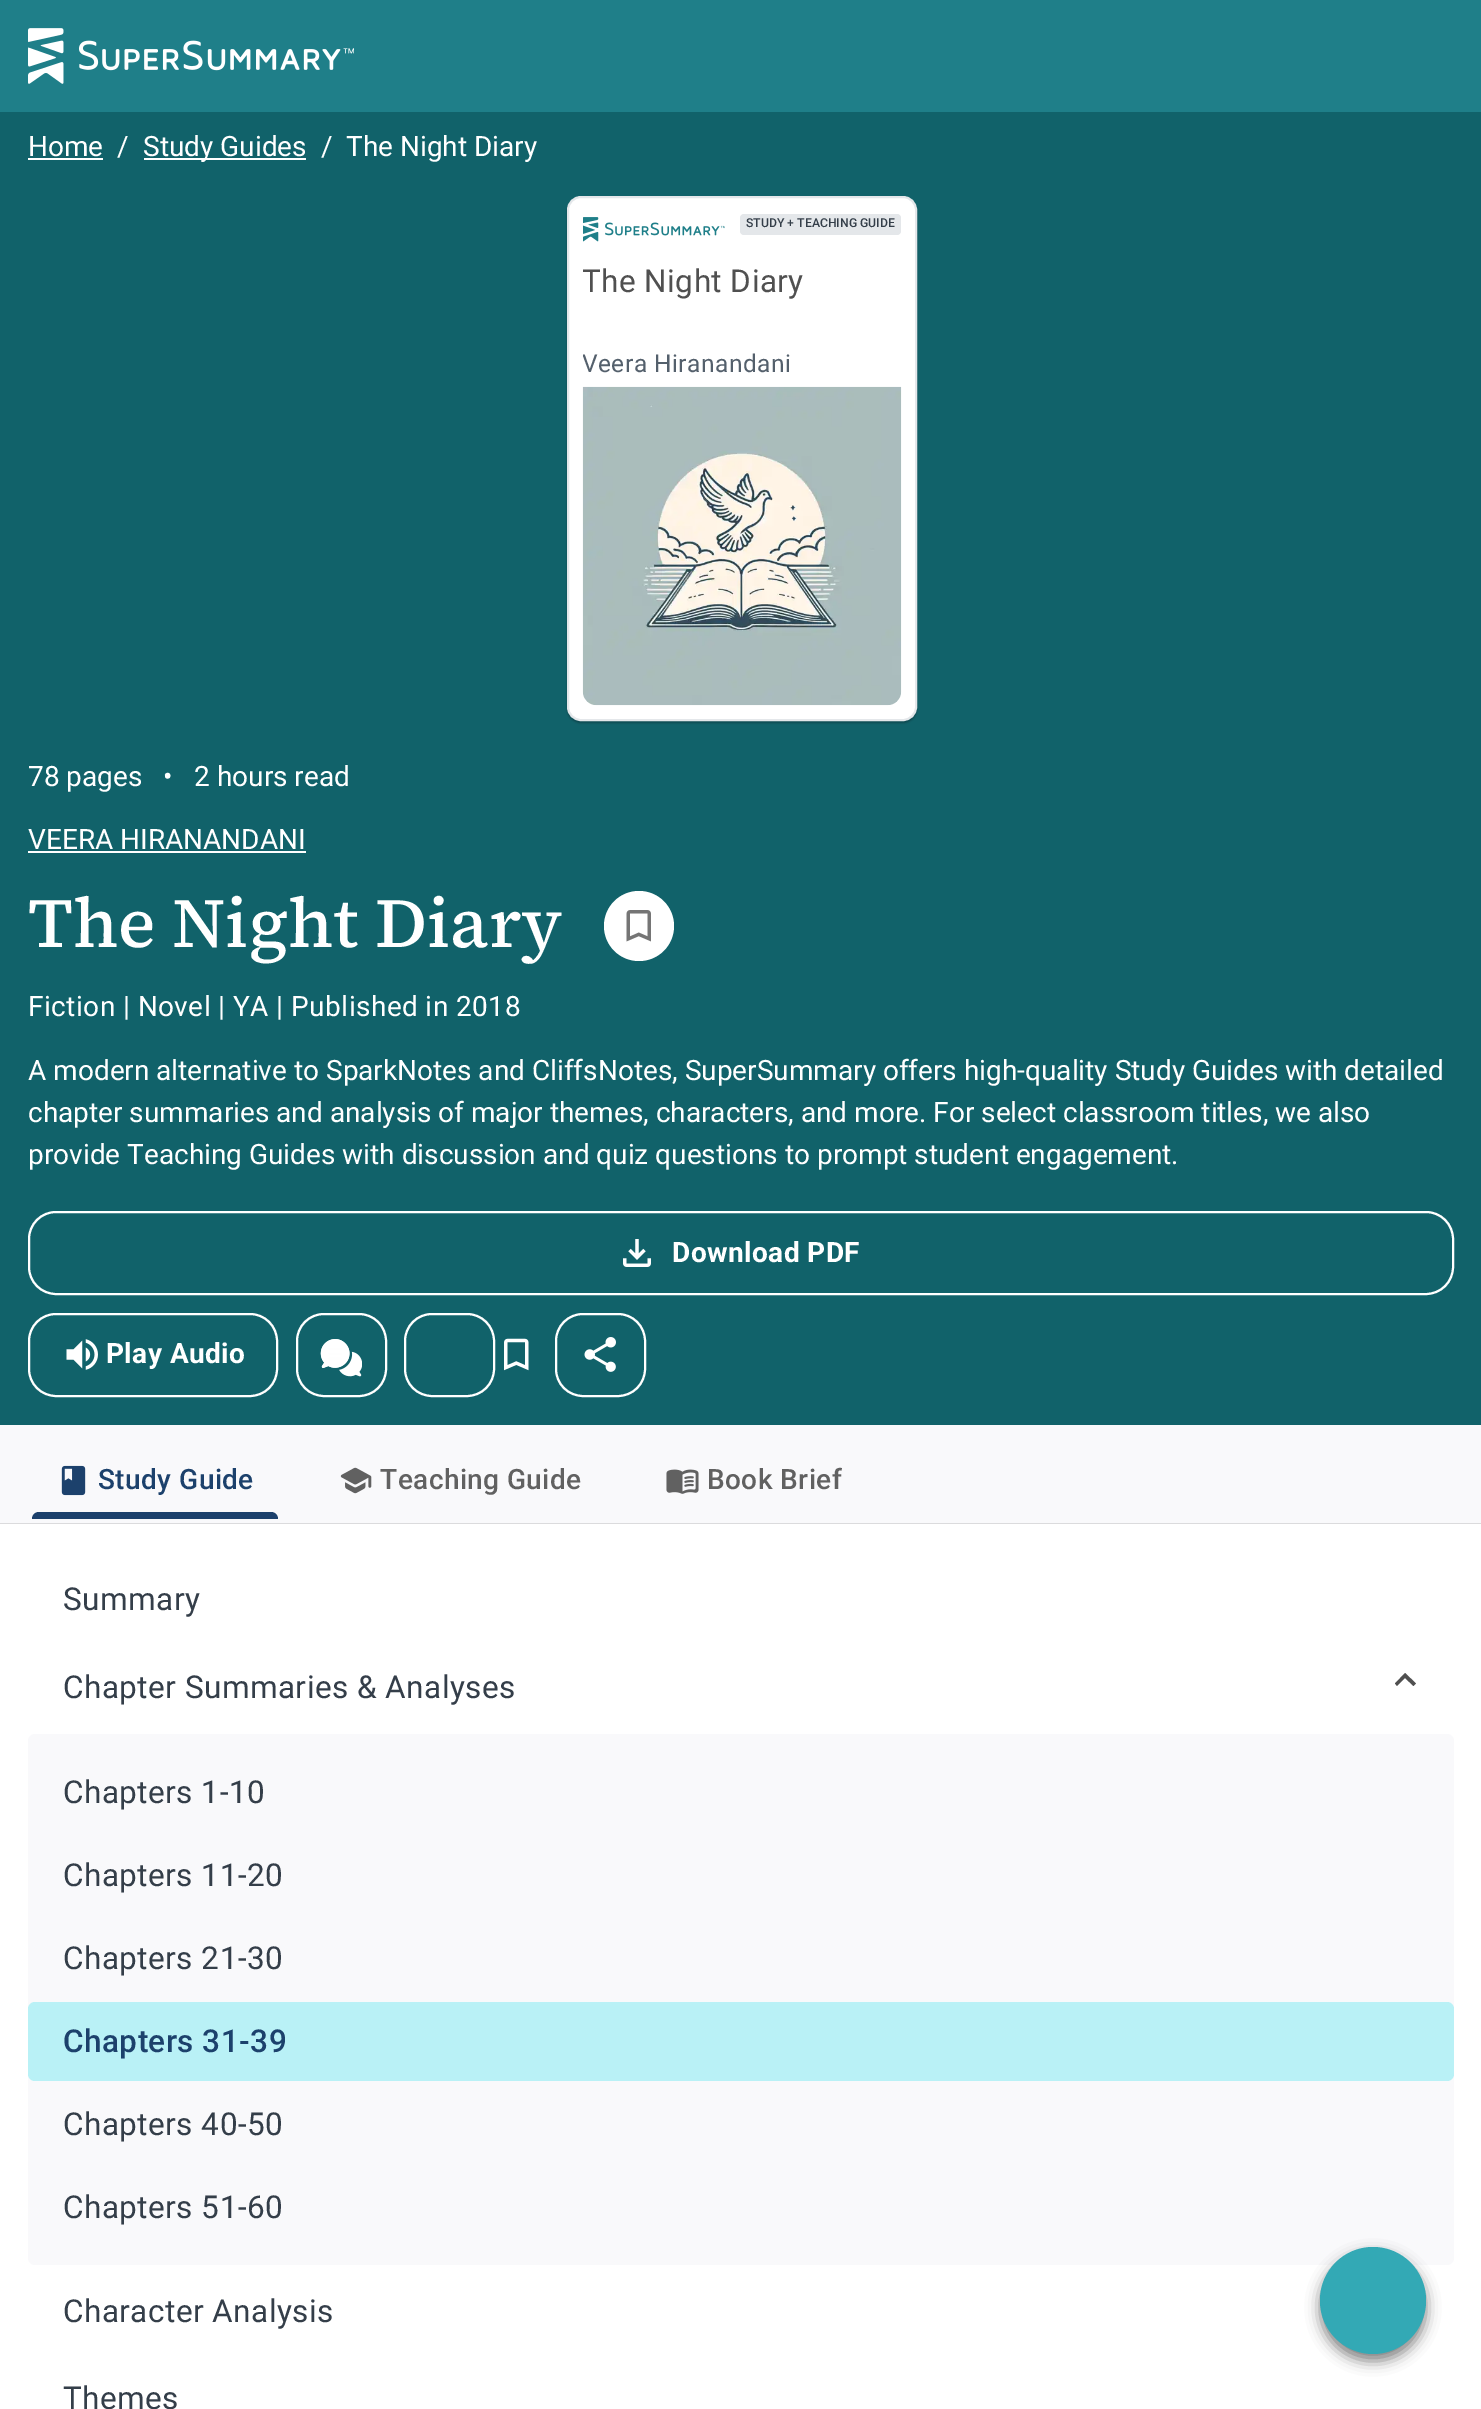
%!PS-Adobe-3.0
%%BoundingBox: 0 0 1481 2409
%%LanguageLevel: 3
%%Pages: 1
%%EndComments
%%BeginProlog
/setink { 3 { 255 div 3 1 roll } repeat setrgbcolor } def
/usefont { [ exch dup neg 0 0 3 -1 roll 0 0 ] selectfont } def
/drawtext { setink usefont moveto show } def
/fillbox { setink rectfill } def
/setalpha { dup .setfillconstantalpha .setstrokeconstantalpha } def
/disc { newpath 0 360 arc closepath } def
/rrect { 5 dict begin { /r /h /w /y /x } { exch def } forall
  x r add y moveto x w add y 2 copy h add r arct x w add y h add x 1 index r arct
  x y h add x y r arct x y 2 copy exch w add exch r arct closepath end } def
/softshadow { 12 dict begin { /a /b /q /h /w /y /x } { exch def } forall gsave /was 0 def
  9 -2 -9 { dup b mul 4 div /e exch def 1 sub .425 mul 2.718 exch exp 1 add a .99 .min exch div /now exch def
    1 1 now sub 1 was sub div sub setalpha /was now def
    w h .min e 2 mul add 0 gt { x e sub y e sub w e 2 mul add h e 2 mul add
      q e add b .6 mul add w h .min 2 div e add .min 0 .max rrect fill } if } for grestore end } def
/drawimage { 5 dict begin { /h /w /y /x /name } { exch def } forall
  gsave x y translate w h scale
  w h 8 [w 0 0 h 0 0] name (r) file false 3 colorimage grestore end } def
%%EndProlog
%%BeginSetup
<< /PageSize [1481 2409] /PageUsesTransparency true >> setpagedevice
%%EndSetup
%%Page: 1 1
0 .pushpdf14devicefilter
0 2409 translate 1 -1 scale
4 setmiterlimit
0 0 1481 2409 249 249 251 fillbox
0 0 1481 112 31 127 137 fillbox
(assets/img1.rgb) 28 28 326 56 drawimage
0 112 1481 1313 17 98 106 fillbox
(Home) 28 156 /Roboto-Regular 28 255 255 255 drawtext
28 158 75 2 255 255 255 fillbox
(/) 117 156 /Roboto-Regular 28 255 255 255 drawtext
144 158 162 2 255 255 255 fillbox
(Study Guides) 143 156 /Roboto-Regular 28 255 255 255 drawtext
(/) 321 156 /Roboto-Regular 28 255 255 255 drawtext
(The Night Diary) 346 156 /Roboto-Regular 28 255 255 255 drawtext
0 0 0 setink
567 198 350 525 14 1 0.25 softshadow
255 255 255 setink
568 197 348 523 13 rrect gsave fill grestore
228 231 234 setink
2 setlinewidth
stroke
(assets/img2.rgb) 583 217 142 25 drawimage
740 214 161 21 4 rrect fill
(STUDY + TEACHING GUIDE) 746 227 /Roboto-Medium 12.25 52 62 73 drawtext
gsave
583 263 318 38 rectclip
/Roboto-Regular 31.5 usefont
80 80 80 setink
582 292 moveto 0.45 0 (The Night Diary) ashow
grestore
gsave
583 350 318 25 rectclip
/Roboto-Regular 24.5 usefont
84 96 108 setink
582 372 moveto 0.45 0 (Veera Hiranandani) ashow
grestore
(assets/img3.rgb) 582 386 320 320 drawimage
(78 pages) 28 786 /Roboto-Regular 28 255 255 255 drawtext
(•) 163 786 /Roboto-Regular 28 255 255 255 drawtext
(2 hours read) 194 786 /Roboto-Regular 28 255 255 255 drawtext
(VEERA HIRANANDANI) 28 849 /Roboto-Regular 28 255 255 255 drawtext
28 851 278 2 255 255 255 fillbox
(The Night Diary) 28 947 /SourceSerif4-Medium 70 255 255 255 drawtext
639 926 35 disc fill
(assets/img4.rgb) 626 910 25 32 drawimage
/Roboto-Regular 28 usefont
28 1016 moveto 0.45 0 (Fiction | Novel | YA | Published in 2018) ashow
(A modern alternative to SparkNotes and CliffsNotes, SuperSummary offers high-quality Study Guides with detailed) 28 1080 /Roboto-Regular 28 255 255 255 drawtext
(chapter summaries and analysis of major themes, characters, and more. For select classroom titles, we also) 28 1122 /Roboto-Regular 28 255 255 255 drawtext
(provide Teaching Guides with discussion and quiz questions to prompt student engagement.) 28 1164 /Roboto-Regular 28 255 255 255 drawtext
29 1212 1424 82 27 rrect stroke
(assets/img5.rgb) 623 1239 28 28 drawimage
/Roboto-Bold 28 usefont
672 1262 moveto 0.45 0 (Download PDF) ashow
29 1314 248 82 27 rrect stroke
(assets/img6.rgb) 66 1339 32 31 drawimage
106 1363 moveto 0.45 0 (Play Audio) ashow
297 1314 89 82 27 rrect stroke
(assets/img7.rgb) 320 1339 42 38 drawimage
405 1314 89 82 27 rrect stroke
(assets/img8.rgb) 504 1338 25 33 drawimage
556 1314 89 82 27 rrect stroke
(assets/img9.rgb) 584 1337 32 35 drawimage
0 1523 1481 1 219 219 221 fillbox
(assets/img10.rgb) 61 1465 25 31 drawimage
/Roboto-Medium 28 usefont
28 65 108 setink
98 1489 moveto 0.45 0 (Study Guide) ashow
39 1512 moveto 271 1512 lineto 275 1512 278 1515 278 1519 curveto 32 1519 lineto 32 1515 35 1512 39 1512 curveto closepath fill
(assets/img11.rgb) 340 1467 32 27 drawimage
97 97 97 setink
380 1489 moveto 0.45 0 (Teaching Guide) ashow
(assets/img12.rgb) 666 1469 33 25 drawimage
707 1489 moveto 0.45 0 (Book Brief) ashow
0 1524 1481 885 255 255 255 fillbox
/Roboto-Regular 31.5 usefont
52 62 73 setink
63 1610 moveto 0.45 0 (Summary) ashow
63 1698 moveto 0.45 0 (Chapter Summaries & Analyses) ashow
80 80 80 setink
1405 1673 moveto 1395 1683.5 lineto 1397 1686 lineto 1405 1678 lineto 1413.5 1686 lineto 1416 1683.5 lineto closepath fill
249 249 251 setink
28 1734 1426 531 7 rrect fill
52 62 73 setink
63 1803 moveto 0.45 0 (Chapters 1-10) ashow
63 1886 moveto 0.45 0 (Chapters 11-20) ashow
63 1969 moveto 0.45 0 (Chapters 21-30) ashow
185 241 246 setink
28 2002 1426 79 7 rrect fill
/Roboto-Medium 31.5 usefont
28 65 108 setink
63 2052 moveto 0.45 0 (Chapters 31-39) ashow
/Roboto-Regular 31.5 usefont
52 62 73 setink
63 2135 moveto 0.45 0 (Chapters 40-50) ashow
63 2218 moveto 0.45 0 (Chapters 51-60) ashow
63 2322 moveto 0.45 0 (Character Analysis) ashow
63 2409 moveto 0.45 0 (Themes) ashow
0 0 0 setink
1320 2254 106 107 53 7 0.5 softshadow
51 169 181 setink
1320 2247 106 107 53 rrect fill
.poppdf14devicefilter showpage
%%EOF
